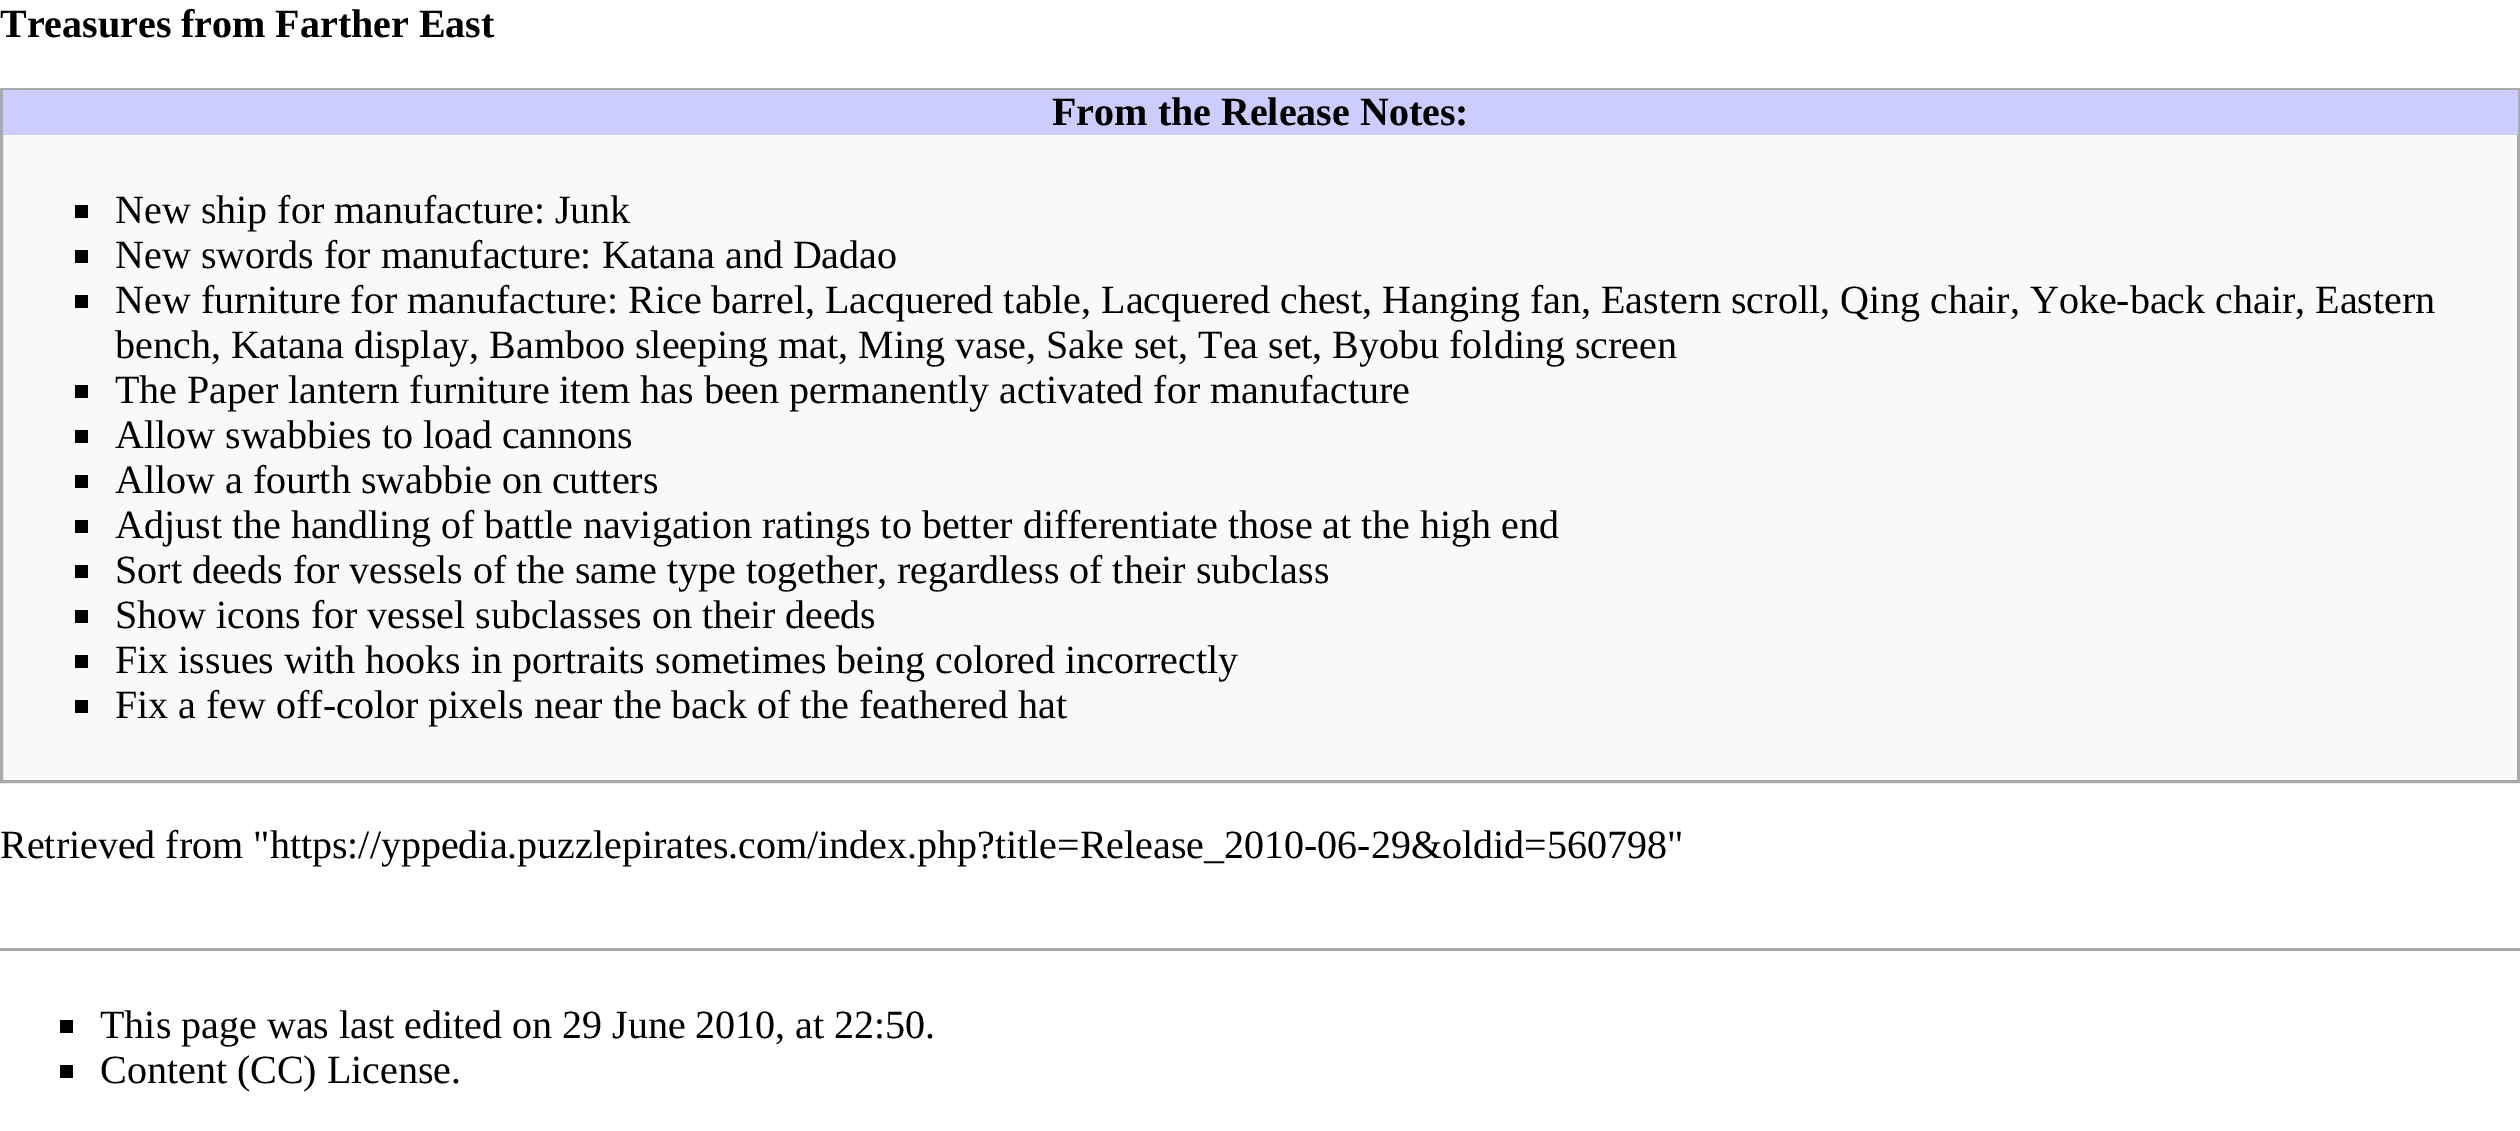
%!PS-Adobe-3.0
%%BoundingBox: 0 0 2520 1131
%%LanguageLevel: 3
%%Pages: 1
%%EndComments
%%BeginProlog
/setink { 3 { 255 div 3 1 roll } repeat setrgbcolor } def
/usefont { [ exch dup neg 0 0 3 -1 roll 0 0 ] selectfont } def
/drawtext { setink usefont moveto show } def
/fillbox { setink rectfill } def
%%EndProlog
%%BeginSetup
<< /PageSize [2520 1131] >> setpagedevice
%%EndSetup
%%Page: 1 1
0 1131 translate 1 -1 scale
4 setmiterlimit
0 0 2520 1131 255 255 255 fillbox
(Treasures from Farther East) 0 37 /LiberationSerif-Bold 40 0 0 0 drawtext
3 135 2514 645 249 249 249 fillbox
170 170 170 setink
3 setlinewidth
1.5 89.5 2517 692 rectstroke
3 90 2515 45 204 204 255 fillbox
(From the Release Notes:) 1052 125 /LiberationSerif-Bold 40 0 0 0 drawtext
75 205 13 13 0 0 0 fillbox
(New ship for manufacture: Junk) 115 223 /LiberationSerif-Regular 40 0 0 0 drawtext
75 250 13 13 0 0 0 fillbox
(New swords for manufacture: Katana and Dadao) 115 268 /LiberationSerif-Regular 40 0 0 0 drawtext
75 295 13 13 0 0 0 fillbox
(New furniture for manufacture: Rice barrel, Lacquered table, Lacquered chest, Hanging fan, Eastern scroll, Qing chair, Yoke-back chair, Eastern) 115 313 /LiberationSerif-Regular 40 0 0 0 drawtext
(bench, Katana display, Bamboo sleeping mat, Ming vase, Sake set, Tea set, Byobu folding screen) 115 358 /LiberationSerif-Regular 40 0 0 0 drawtext
75 385 13 13 0 0 0 fillbox
(The Paper lantern furniture item has been permanently activated for manufacture) 115 403 /LiberationSerif-Regular 40 0 0 0 drawtext
75 430 13 13 0 0 0 fillbox
(Allow swabbies to load cannons) 115 448 /LiberationSerif-Regular 40 0 0 0 drawtext
75 475 13 13 0 0 0 fillbox
(Allow a fourth swabbie on cutters) 115 493 /LiberationSerif-Regular 40 0 0 0 drawtext
75 520 13 13 0 0 0 fillbox
(Adjust the handling of battle navigation ratings to better differentiate those at the high end) 115 538 /LiberationSerif-Regular 40 0 0 0 drawtext
75 565 13 13 0 0 0 fillbox
(Sort deeds for vessels of the same type together, regardless of their subclass) 115 583 /LiberationSerif-Regular 40 0 0 0 drawtext
75 610 13 13 0 0 0 fillbox
(Show icons for vessel subclasses on their deeds) 115 628 /LiberationSerif-Regular 40 0 0 0 drawtext
75 655 13 13 0 0 0 fillbox
(Fix issues with hooks in portraits sometimes being colored incorrectly) 115 673 /LiberationSerif-Regular 40 0 0 0 drawtext
75 700 13 13 0 0 0 fillbox
(Fix a few off-color pixels near the back of the feathered hat) 115 718 /LiberationSerif-Regular 40 0 0 0 drawtext
(Retrieved from "https://yppedia.puzzlepirates.com/index.php?title=Release_2010-06-29&oldid=560798") 0 858 /LiberationSerif-Regular 40 0 0 0 drawtext
0 948 2520 3 170 170 170 fillbox
60 1020 13 13 0 0 0 fillbox
(This page was last edited on 29 June 2010, at 22:50.) 100 1038 /LiberationSerif-Regular 40 0 0 0 drawtext
60 1065 13 13 0 0 0 fillbox
(Content \(CC\) License.) 100 1083 /LiberationSerif-Regular 40 0 0 0 drawtext
showpage
%%EOF
